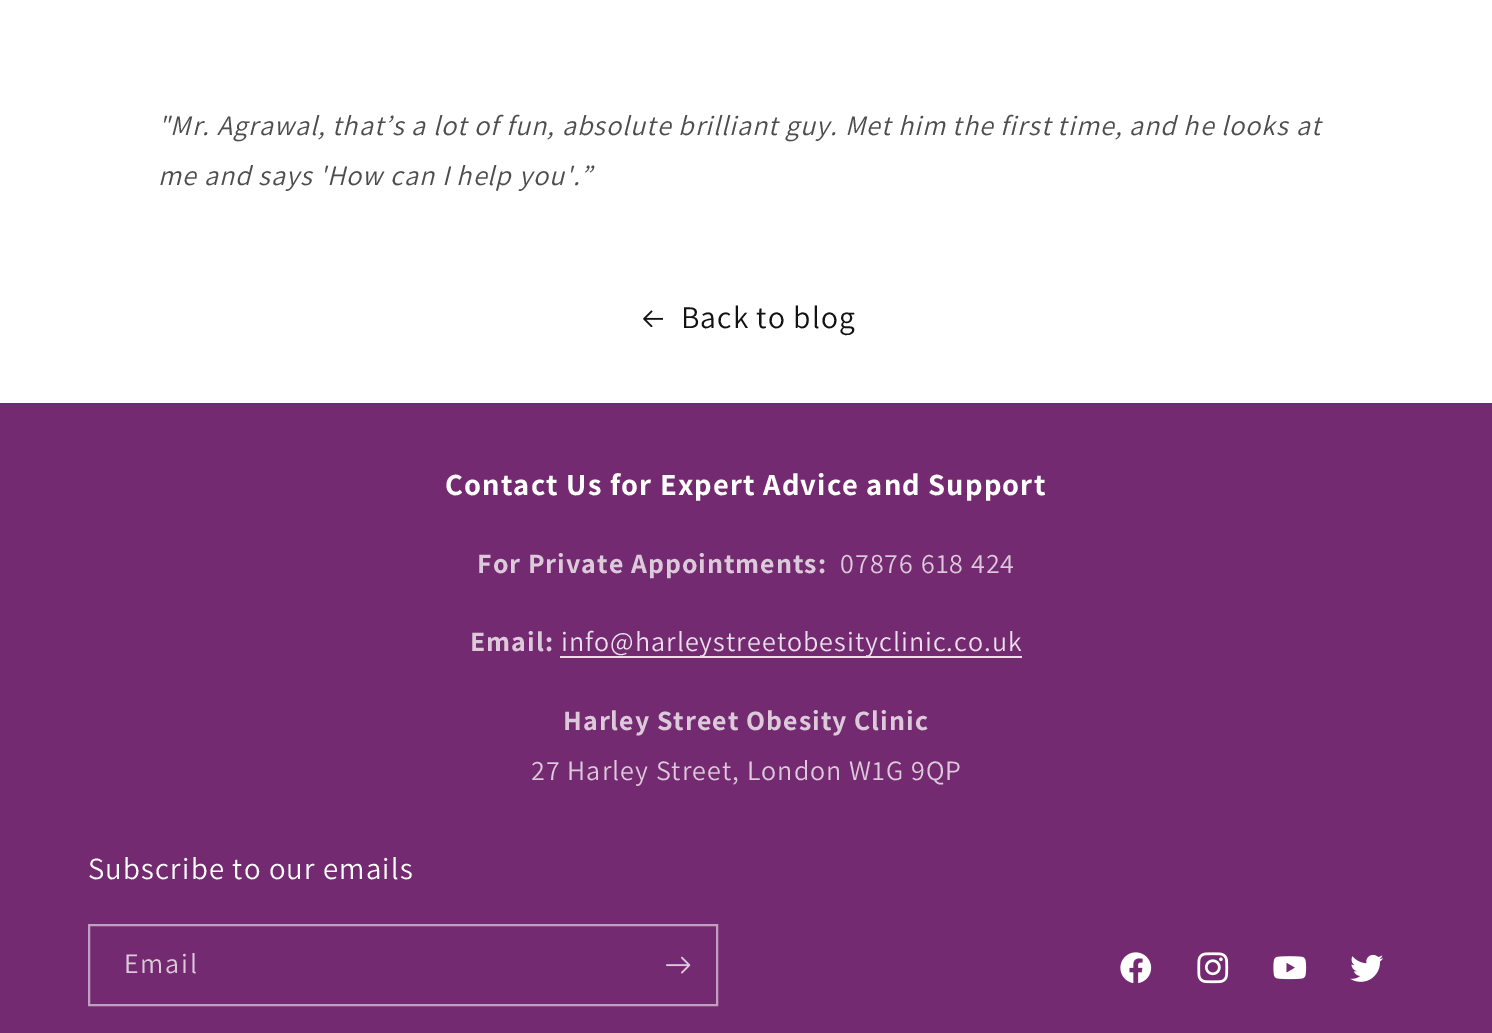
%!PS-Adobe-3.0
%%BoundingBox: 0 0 1492 1033
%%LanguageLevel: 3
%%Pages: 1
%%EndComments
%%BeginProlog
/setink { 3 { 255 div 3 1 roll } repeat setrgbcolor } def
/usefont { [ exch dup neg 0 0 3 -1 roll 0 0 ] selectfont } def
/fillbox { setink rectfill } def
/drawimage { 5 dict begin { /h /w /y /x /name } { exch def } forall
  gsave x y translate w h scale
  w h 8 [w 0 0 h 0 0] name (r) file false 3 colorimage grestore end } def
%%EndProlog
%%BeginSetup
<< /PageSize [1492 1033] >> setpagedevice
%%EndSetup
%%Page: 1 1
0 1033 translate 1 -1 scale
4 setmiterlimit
0 0 1492 1033 255 255 255 fillbox
/Assistant-Italic 28 usefont
77 77 77 setink
158 135 moveto 1.05 0 ("Mr. Agrawal, that’s a lot of fun, absolute brilliant guy. Met him the first time, and he looks at) ashow
158 185 moveto 1.05 0 (me and says 'How can I help you'.”) ashow
(assets/img1.rgb) 643 310 20 17 drawimage
/Assistant-Regular 31.5 usefont
18 18 18 setink
681 328 moveto 1.05 0 (Back to blog) ashow
0 403 1492 630 116 42 112 fillbox
/Assistant-Bold 30.75 usefont
255 255 255 setink
445 495 moveto 1.15 0 (Contact Us for Expert Advice and Support) ashow
/Assistant-Bold 28 usefont
220 202 219 setink
477 573 moveto 1.05 0 (For Private Appointments:) ashow
/Assistant-Regular 28 usefont
840 573 moveto 1.05 0 (07876 618 424) ashow
/Assistant-Bold 28 usefont
470 651 moveto 1.05 0 (Email:) ashow
560 656 462 2 234 223 234 fillbox
/Assistant-Regular 28 usefont
561 651 moveto 1.05 0 (info@harleystreetobesityclinic.co.uk) ashow
/Assistant-Bold 28 usefont
220 202 219 setink
563 730 moveto 1.05 0 (Harley Street Obesity Clinic) ashow
/Assistant-Regular 28 usefont
531 780 moveto 1.05 0 (27 Harley Street, London W1G 9QP) ashow
/Assistant-Regular 30.75 usefont
255 255 255 setink
88 879 moveto 1.15 0 (Subscribe to our emails) ashow
192 159 191 setink
2 setlinewidth
89 925 628 80 rectstroke
/Assistant-Regular 28 usefont
220 202 219 setink
124 973 moveto 1.75 0 (Email) ashow
(assets/img2.rgb) 666 956 25 18 drawimage
(assets/img3.rgb) 1120 952 32 32 drawimage
(assets/img4.rgb) 1197 952 32 32 drawimage
(assets/img5.rgb) 1273 956 34 24 drawimage
(assets/img6.rgb) 1350 954 34 28 drawimage
showpage
%%EOF
